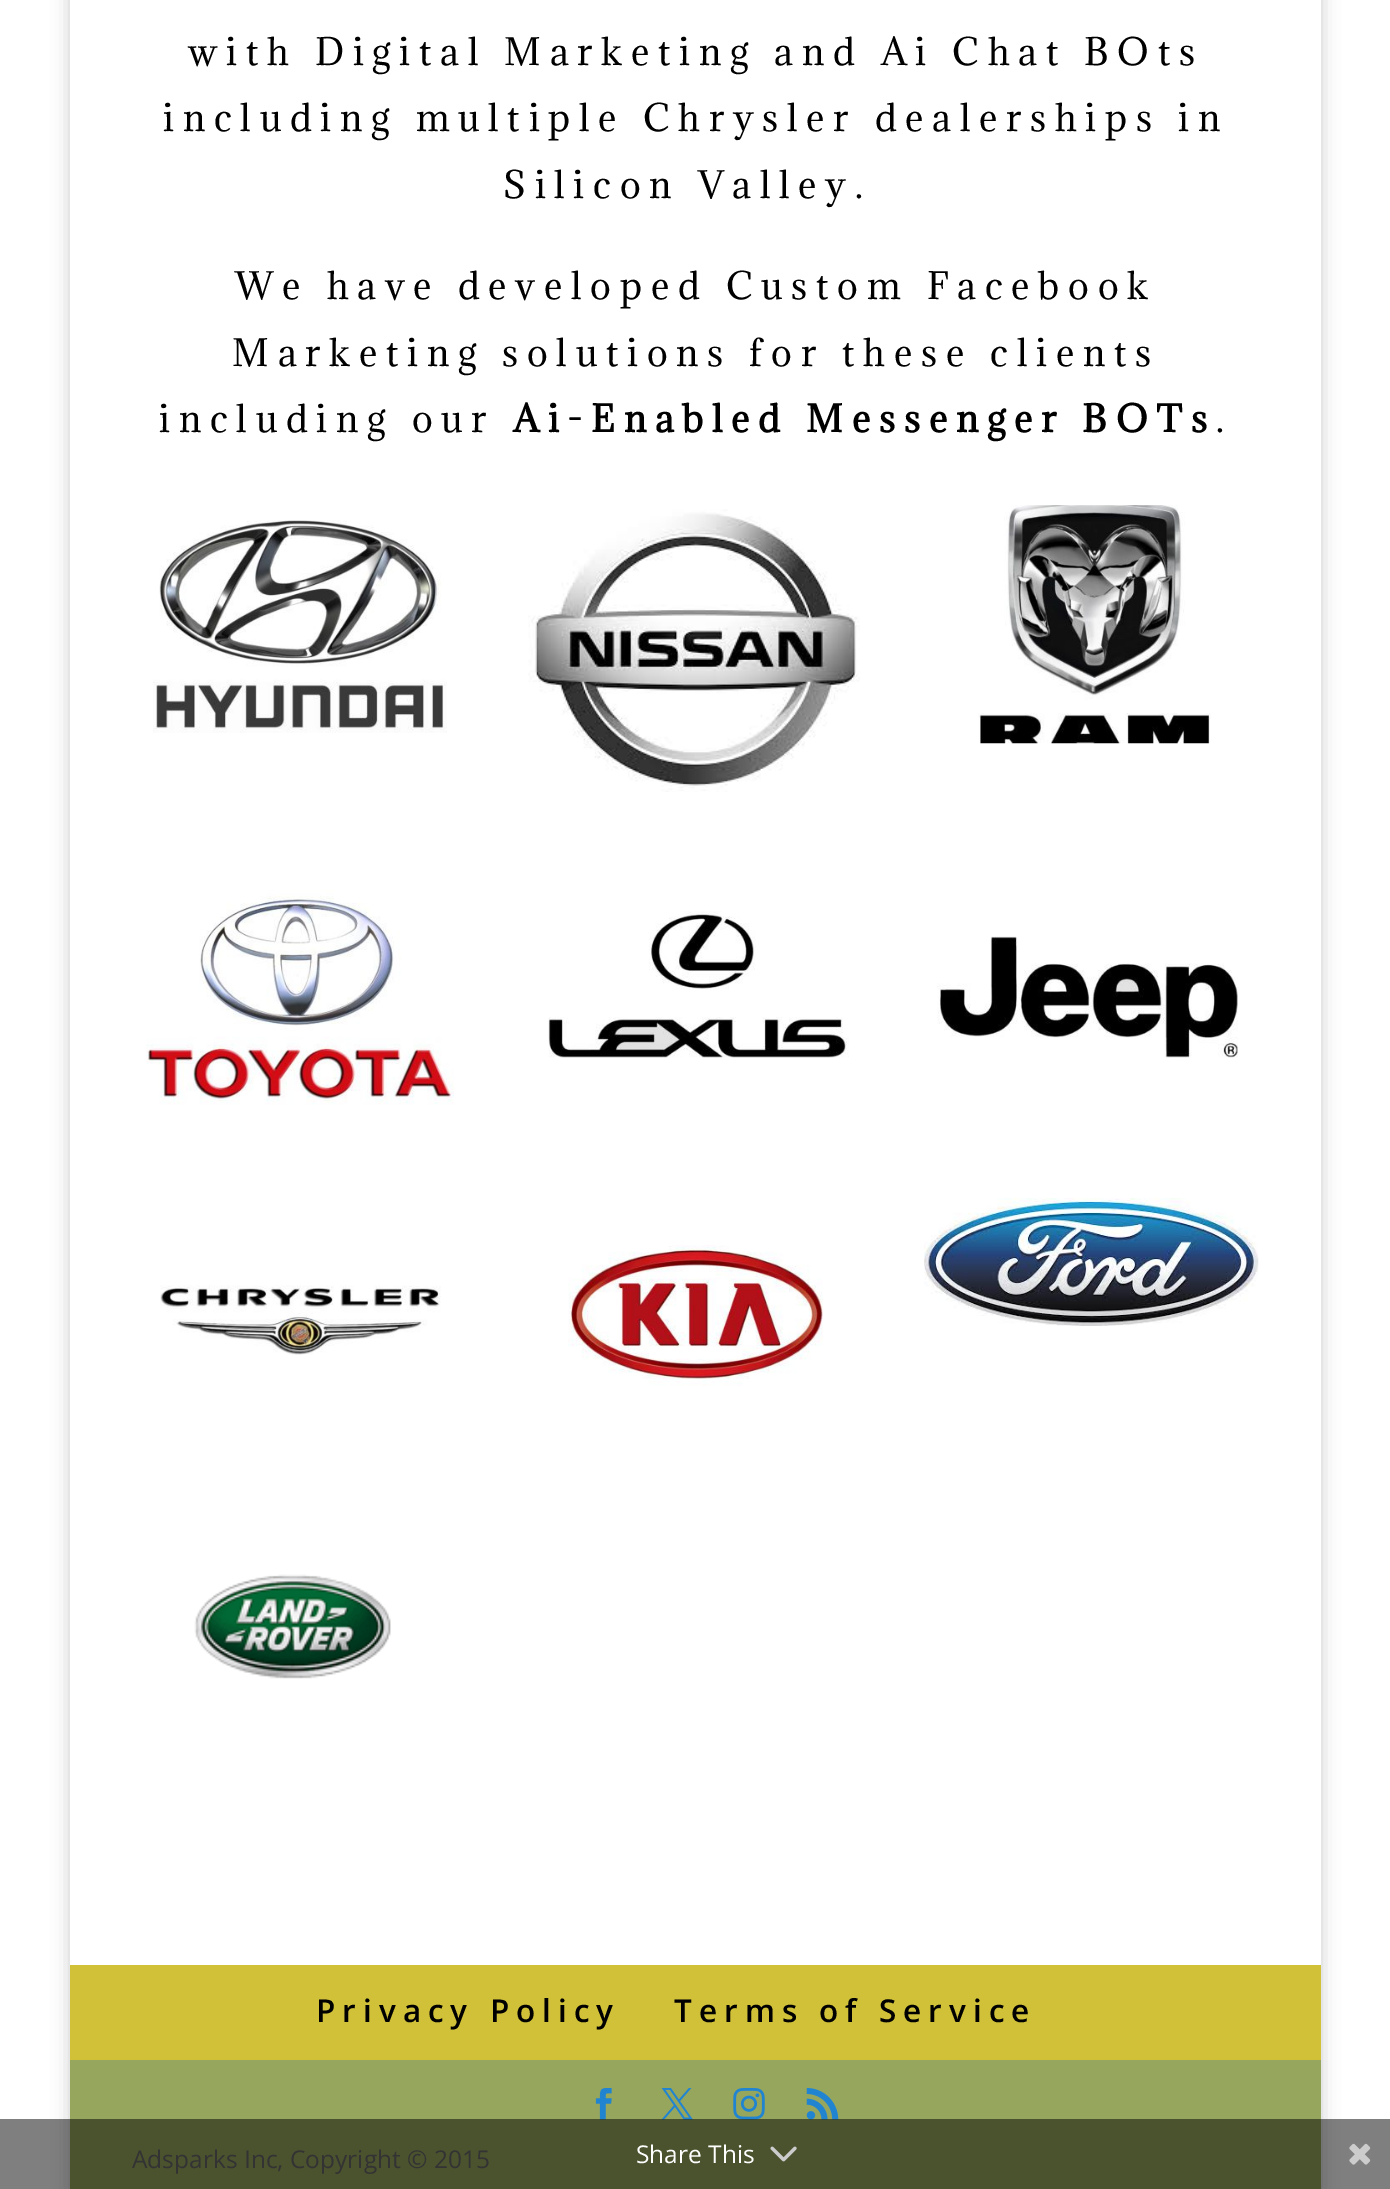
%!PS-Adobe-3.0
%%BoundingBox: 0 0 1390 2189
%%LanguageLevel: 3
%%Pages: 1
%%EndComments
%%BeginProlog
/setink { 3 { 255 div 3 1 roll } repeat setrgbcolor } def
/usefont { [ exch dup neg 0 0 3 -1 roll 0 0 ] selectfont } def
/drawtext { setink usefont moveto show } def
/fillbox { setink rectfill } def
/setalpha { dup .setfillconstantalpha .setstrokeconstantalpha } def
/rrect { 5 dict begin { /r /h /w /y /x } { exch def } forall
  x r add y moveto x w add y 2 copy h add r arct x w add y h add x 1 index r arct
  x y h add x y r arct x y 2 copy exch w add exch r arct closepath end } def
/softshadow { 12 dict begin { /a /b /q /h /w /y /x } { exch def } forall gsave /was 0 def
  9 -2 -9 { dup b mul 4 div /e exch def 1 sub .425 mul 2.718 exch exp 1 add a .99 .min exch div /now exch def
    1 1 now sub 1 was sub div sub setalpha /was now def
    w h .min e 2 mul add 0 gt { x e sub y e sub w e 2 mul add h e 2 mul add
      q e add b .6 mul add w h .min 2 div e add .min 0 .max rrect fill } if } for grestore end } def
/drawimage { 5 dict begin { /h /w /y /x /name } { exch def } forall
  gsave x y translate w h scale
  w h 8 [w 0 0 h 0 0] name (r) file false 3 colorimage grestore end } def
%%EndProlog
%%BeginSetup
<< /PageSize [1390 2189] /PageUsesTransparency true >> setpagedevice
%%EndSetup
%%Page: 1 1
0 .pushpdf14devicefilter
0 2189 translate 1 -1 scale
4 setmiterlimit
0 0 1390 2189 255 255 255 fillbox
gsave
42 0 moveto 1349 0 lineto 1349 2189 lineto 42 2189 lineto closepath 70 -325 moveto 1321 -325 lineto 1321 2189 lineto 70 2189 lineto closepath eoclip newpath
0 0 0 setink
70 -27 1251 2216 0 9 0.2 softshadow
grestore
/Adamina-Regular 35 usefont
0 0 0 setink
188 65 moveto 8.75 0 (with Digital Marketing and Ai Chat BOts) ashow
163 131 moveto 8.75 0 (including multiple Chrysler dealerships in) ashow
503 198 moveto 8.75 0 (Silicon Valley.) ashow
235 299 moveto 8.75 0 (We have developed Custom Facebook) ashow
232 366 moveto 8.75 0 (Marketing solutions for these clients) ashow
159 432 moveto 8.75 0 (including our) ashow
/Adamina-Bold 35 usefont
513 432 moveto 8.75 0 (Ai-Enabled Messenger BOTs) ashow
/Adamina-Regular 35 usefont
1216 432 moveto 8.75 0 (.) ashow
(assets/img1.rgb) 153 520 294 213 drawimage
(assets/img2.rgb) 528 509 332 283 drawimage
(assets/img3.rgb) 978 505 233 239 drawimage
(assets/img4.rgb) 146 890 308 215 drawimage
(assets/img5.rgb) 548 911 301 147 drawimage
(assets/img6.rgb) 937 936 301 122 drawimage
(assets/img7.rgb) 160 1285 281 70 drawimage
(assets/img8.rgb) 568 1245 255 141 drawimage
(assets/img9.rgb) 924 1198 335 128 drawimage
(assets/img10.rgb) 194 1574 197 105 drawimage
70 1965 1251 95 208 193 57 fillbox
/OpenSans-SemiBold 31.5 usefont
0 0 0 setink
316 2022 moveto 7 0 (Privacy Policy) ashow
674 2022 moveto 7 0 (Terms of Service) ashow
70 2060 1251 129 150 166 93 fillbox
(assets/img11.rgb) 595 2088 17 32 drawimage
(assets/img12.rgb) 661 2088 32 32 drawimage
(assets/img13.rgb) 733 2088 32 32 drawimage
(assets/img14.rgb) 806 2088 33 32 drawimage
(Adsparks Inc, Copyright © 2015) 132 2168 /OpenSans-Regular 24.5 102 102 102 drawtext
0.5 setalpha
0 2119 1390 70 0 0 0 fillbox
1 setalpha
(Share This) 636 2163 /OpenSans-Regular 24.5 255 255 255 drawtext
(assets/img15.rgb) 770 2146 27 16 drawimage
(assets/img16.rgb) 1349 2143 22 22 drawimage
.poppdf14devicefilter showpage
%%EOF
